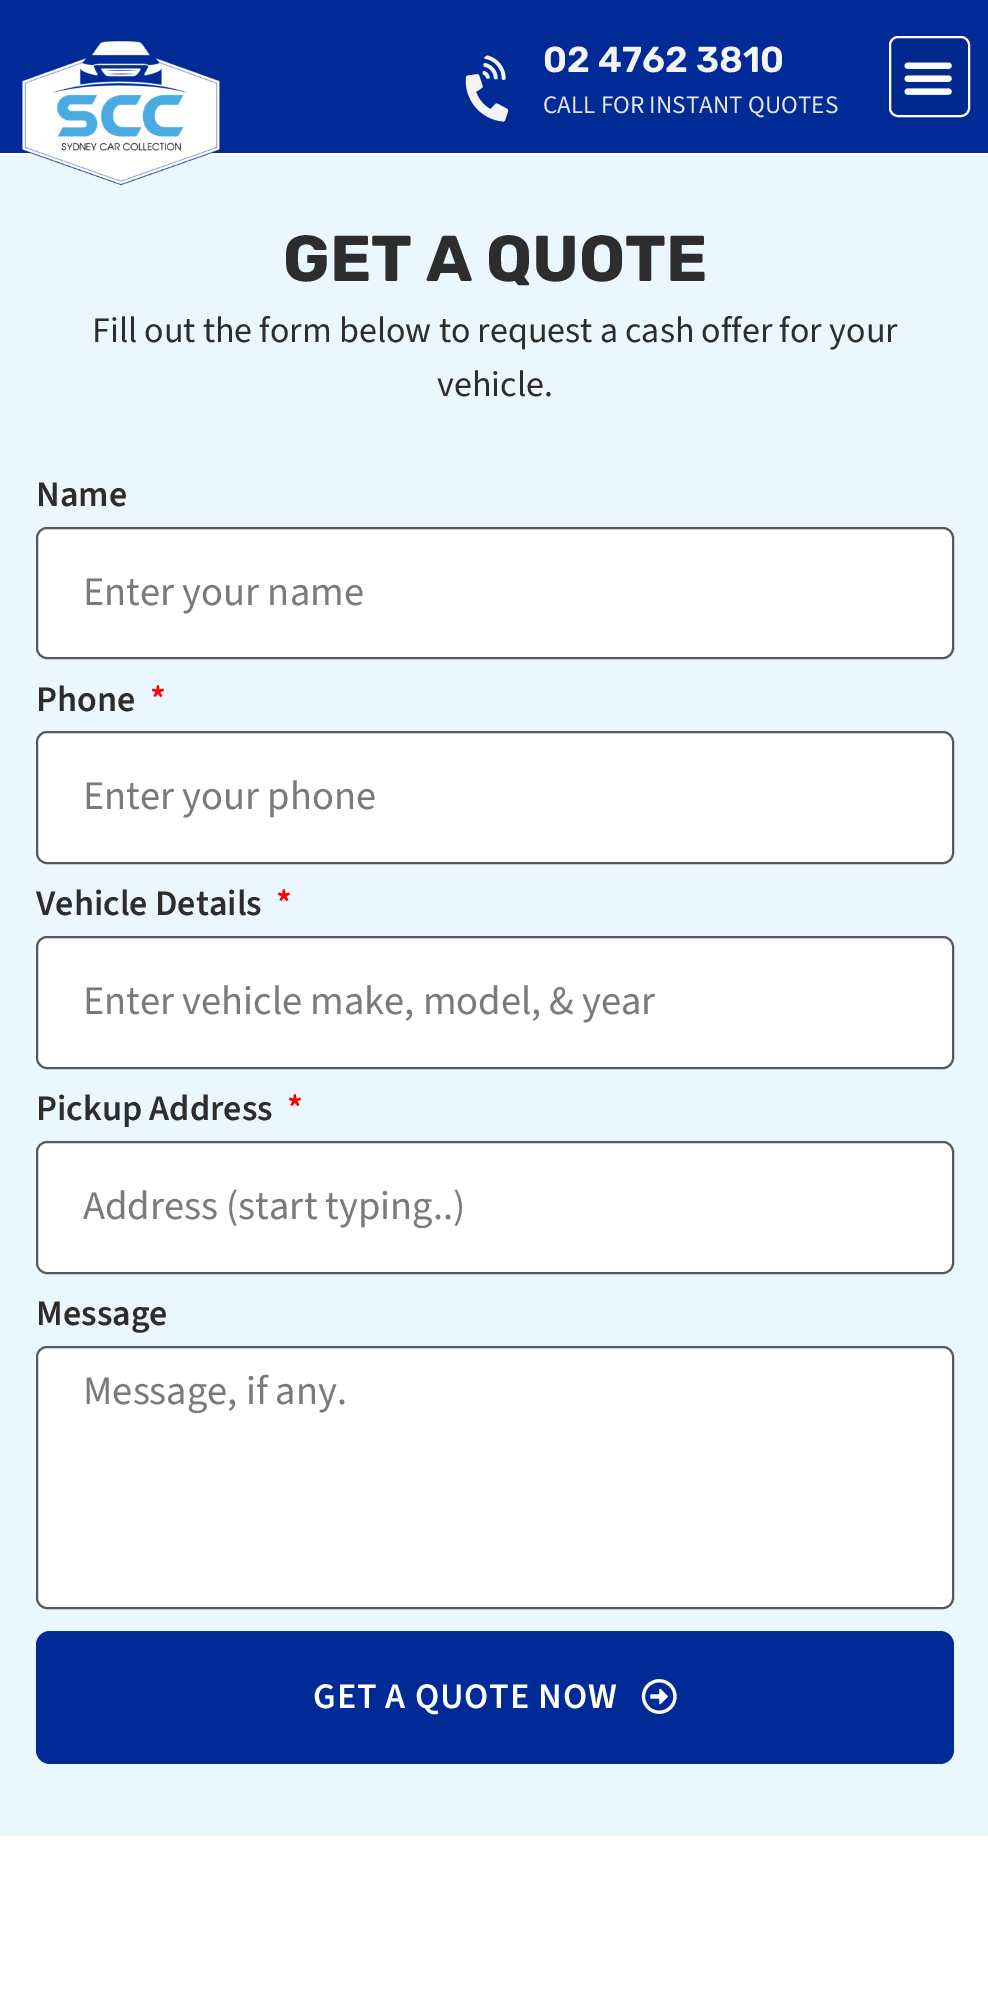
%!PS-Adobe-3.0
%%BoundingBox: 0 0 988 2002
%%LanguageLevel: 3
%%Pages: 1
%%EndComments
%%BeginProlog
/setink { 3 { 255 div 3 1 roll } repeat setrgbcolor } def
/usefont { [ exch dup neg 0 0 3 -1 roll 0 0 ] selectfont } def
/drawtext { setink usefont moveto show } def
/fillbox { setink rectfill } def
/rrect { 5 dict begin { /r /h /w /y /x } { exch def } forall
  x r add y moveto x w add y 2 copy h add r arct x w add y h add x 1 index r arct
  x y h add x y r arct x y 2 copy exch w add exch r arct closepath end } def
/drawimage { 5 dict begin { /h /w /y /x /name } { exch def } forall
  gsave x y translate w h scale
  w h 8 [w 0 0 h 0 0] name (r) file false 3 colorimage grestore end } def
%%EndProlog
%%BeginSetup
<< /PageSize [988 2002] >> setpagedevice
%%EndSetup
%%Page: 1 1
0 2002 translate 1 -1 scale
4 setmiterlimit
0 0 988 2002 255 255 255 fillbox
0 0 988 153 0 42 150 fillbox
0 155 988 1681 234 247 255 fillbox
(assets/img1.rgb) 22 41 198 145 drawimage
(assets/img2.rgb) 465 55 44 67 drawimage
(02 4762 3810) 543 72 /Rubik-SemiBold 36 244 244 244 drawtext
(CALL FOR INSTANT QUOTES) 543 113 /SourceSans3-Regular 25.25 230 230 230 drawtext
0 40 143 setink
890 37 79 79 8 rrect gsave fill grestore
255 255 255 setink
2 setlinewidth
stroke
(assets/img3.rgb) 904 62 48 33 drawimage
(GET A QUOTE) 283 281 /Rubik-Bold 64.75 45 45 45 drawtext
(Fill out the form below to request a cash offer for your) 92 342 /SourceSans3-Regular 36 45 45 45 drawtext
(vehicle.) 437 396 /SourceSans3-Regular 36 45 45 45 drawtext
(Name) 36 506 /SourceSans3-SemiBold 36 45 45 45 drawtext
255 255 255 setink
37 528 916 130 10 rrect gsave fill grestore
84 89 95 setink
stroke
(Enter your name) 83 605 /SourceSans3-Regular 40.5 121 122 124 drawtext
(Phone) 36 711 /SourceSans3-SemiBold 36 45 45 45 drawtext
(*) 150 711 /SourceSans3-SemiBold 36 255 0 0 drawtext
255 255 255 setink
37 732 916 131 10 rrect gsave fill grestore
84 89 95 setink
stroke
(Enter your phone) 83 809 /SourceSans3-Regular 40.5 121 122 124 drawtext
(Vehicle Details) 36 915 /SourceSans3-SemiBold 36 45 45 45 drawtext
(*) 276 915 /SourceSans3-SemiBold 36 255 0 0 drawtext
255 255 255 setink
37 937 916 131 10 rrect gsave fill grestore
84 89 95 setink
stroke
(Enter vehicle make, model, & year) 83 1014 /SourceSans3-Regular 40.5 121 122 124 drawtext
(Pickup Address) 36 1120 /SourceSans3-SemiBold 36 45 45 45 drawtext
(*) 287 1120 /SourceSans3-SemiBold 36 255 0 0 drawtext
255 255 255 setink
37 1142 916 131 10 rrect gsave fill grestore
84 89 95 setink
stroke
(Address \(start typing..\)) 83 1219 /SourceSans3-Regular 40.5 121 122 124 drawtext
(Message) 36 1325 /SourceSans3-SemiBold 36 45 45 45 drawtext
255 255 255 setink
37 1347 916 261 10 rrect gsave fill grestore
84 89 95 setink
stroke
(Message, if any.) 83 1404 /SourceSans3-Regular 40.5 121 122 124 drawtext
0 42 150 setink
36 1631 918 133 14 rrect fill
/SourceSans3-SemiBold 36 usefont
255 255 255 setink
313 1708 moveto 0.9 0 (GET A QUOTE NOW) ashow
(assets/img4.rgb) 641 1679 36 35 drawimage
showpage
%%EOF
